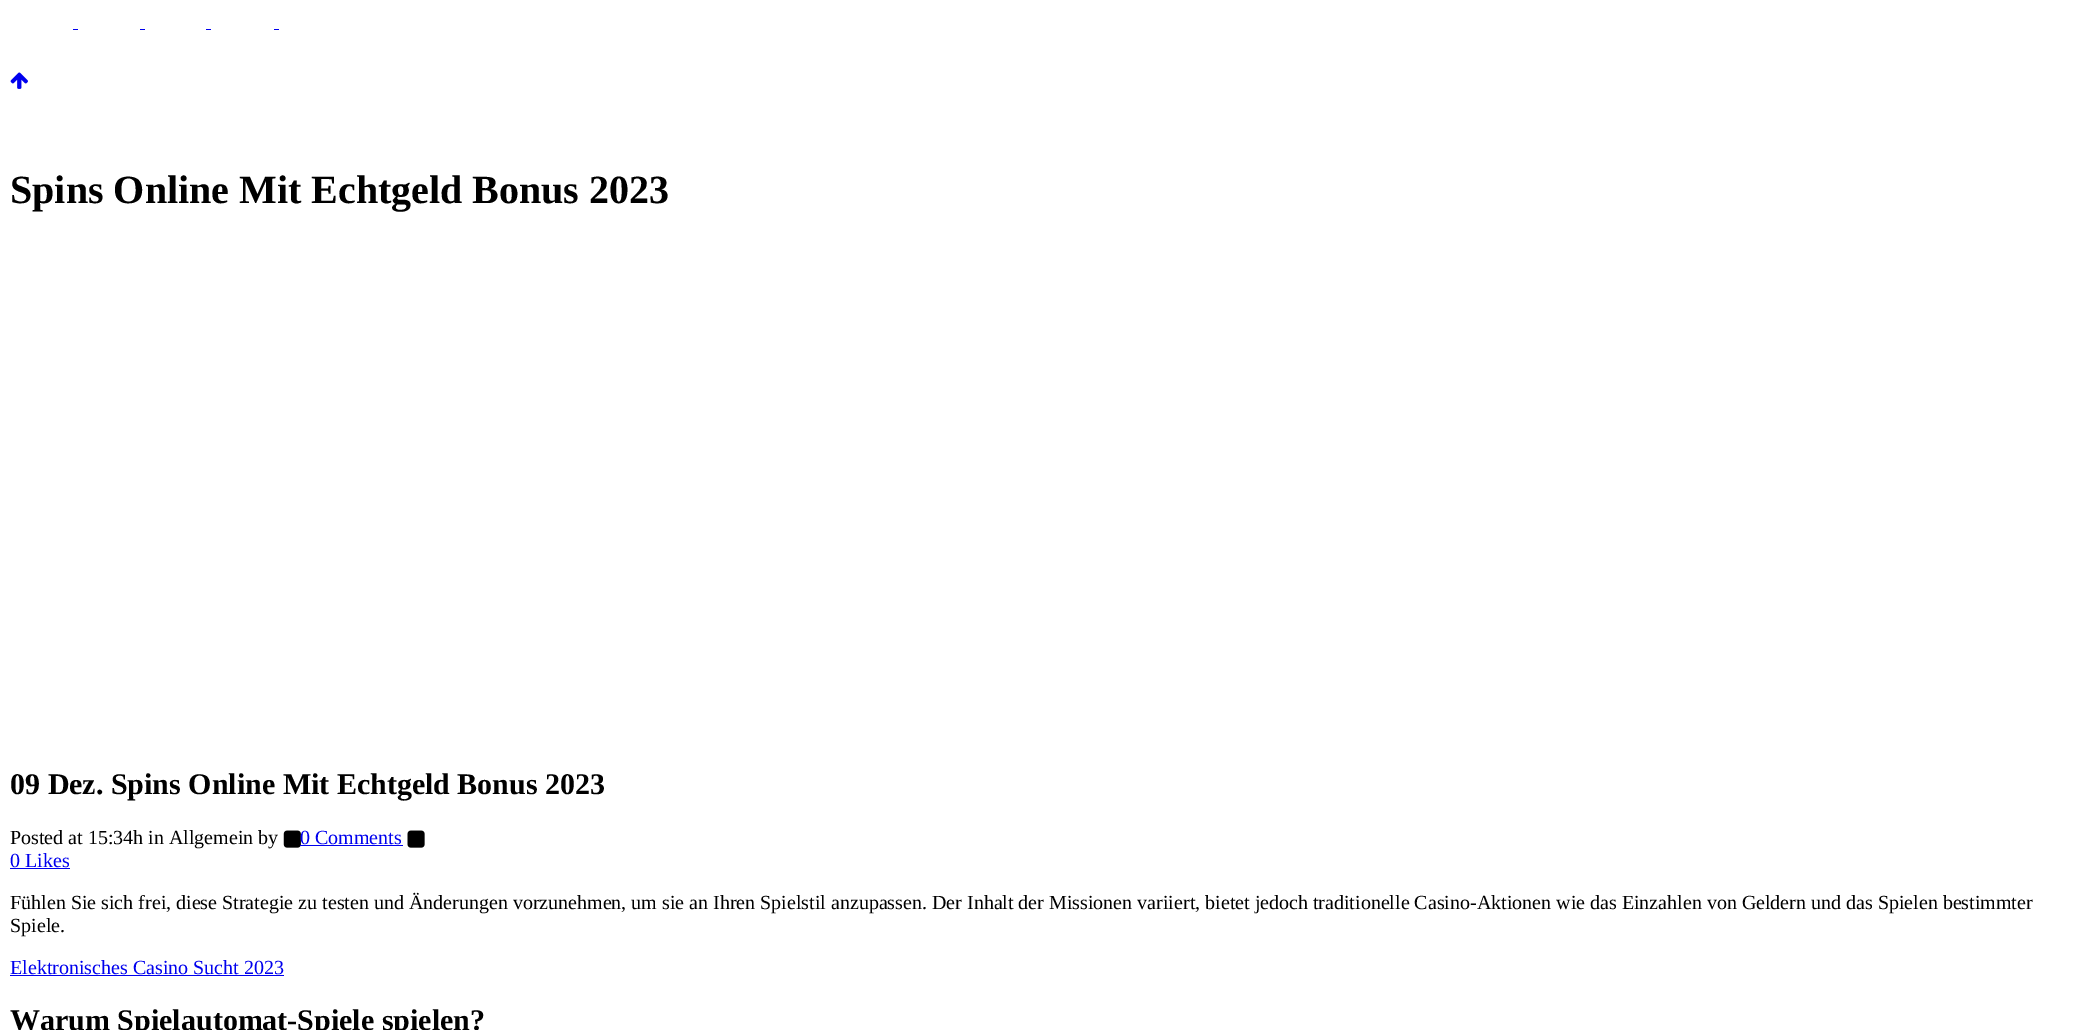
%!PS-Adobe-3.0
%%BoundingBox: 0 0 2073 1030
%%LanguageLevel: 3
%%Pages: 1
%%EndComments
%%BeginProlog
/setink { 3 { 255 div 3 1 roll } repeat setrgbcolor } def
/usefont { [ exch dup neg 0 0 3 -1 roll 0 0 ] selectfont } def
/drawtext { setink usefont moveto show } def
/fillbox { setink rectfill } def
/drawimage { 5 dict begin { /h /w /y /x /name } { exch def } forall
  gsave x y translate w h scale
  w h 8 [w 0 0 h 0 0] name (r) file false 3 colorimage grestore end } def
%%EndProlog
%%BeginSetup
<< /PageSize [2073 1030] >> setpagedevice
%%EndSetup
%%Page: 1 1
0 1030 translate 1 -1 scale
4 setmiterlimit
0 0 2073 1030 255 255 255 fillbox
73 29 5 1 0 0 238 fillbox
140 29 5 1 0 0 238 fillbox
206 29 5 1 0 0 238 fillbox
274 29 5 1 0 0 238 fillbox
(assets/img1.rgb) 10 72 18 17 drawimage
(Spins Online Mit Echtgeld Bonus 2023) 10 203 /LiberationSerif-Bold 40 0 0 0 drawtext
(09 Dez. Spins Online Mit Echtgeld Bonus 2023) 10 794 /LiberationSerif-Bold 30 0 0 0 drawtext
(Posted at 15:34h in Allgemein by) 10 844 /LiberationSerif-Regular 20 0 0 0 drawtext
(assets/img2.rgb) 283 830 18 18 drawimage
(0 Comments) 300 844 /LiberationSerif-Regular 20 0 0 238 drawtext
300 845 103 1 0 0 238 fillbox
(assets/img3.rgb) 407 830 18 18 drawimage
(0 Likes) 10 867 /LiberationSerif-Regular 20 0 0 238 drawtext
10 868 60 1 0 0 238 fillbox
(Fühlen Sie sich frei, diese Strategie zu testen und Änderungen vorzunehmen, um sie an Ihren Spielstil anzupassen. Der Inhalt der Missionen variiert, bietet jedoch traditionelle Casino-Aktionen wie das Einzahlen von Geldern und das Spielen bestimmter) 10 909 /LiberationSerif-Regular 20 0 0 0 drawtext
(Spiele.) 10 932 /LiberationSerif-Regular 20 0 0 0 drawtext
(Elektronisches Casino Sucht 2023) 10 974 /LiberationSerif-Regular 20 0 0 238 drawtext
10 975 274 1 0 0 238 fillbox
(Warum Spielautomat-Spiele spielen?) 10 1030 /LiberationSerif-Bold 30 0 0 0 drawtext
showpage
%%EOF
